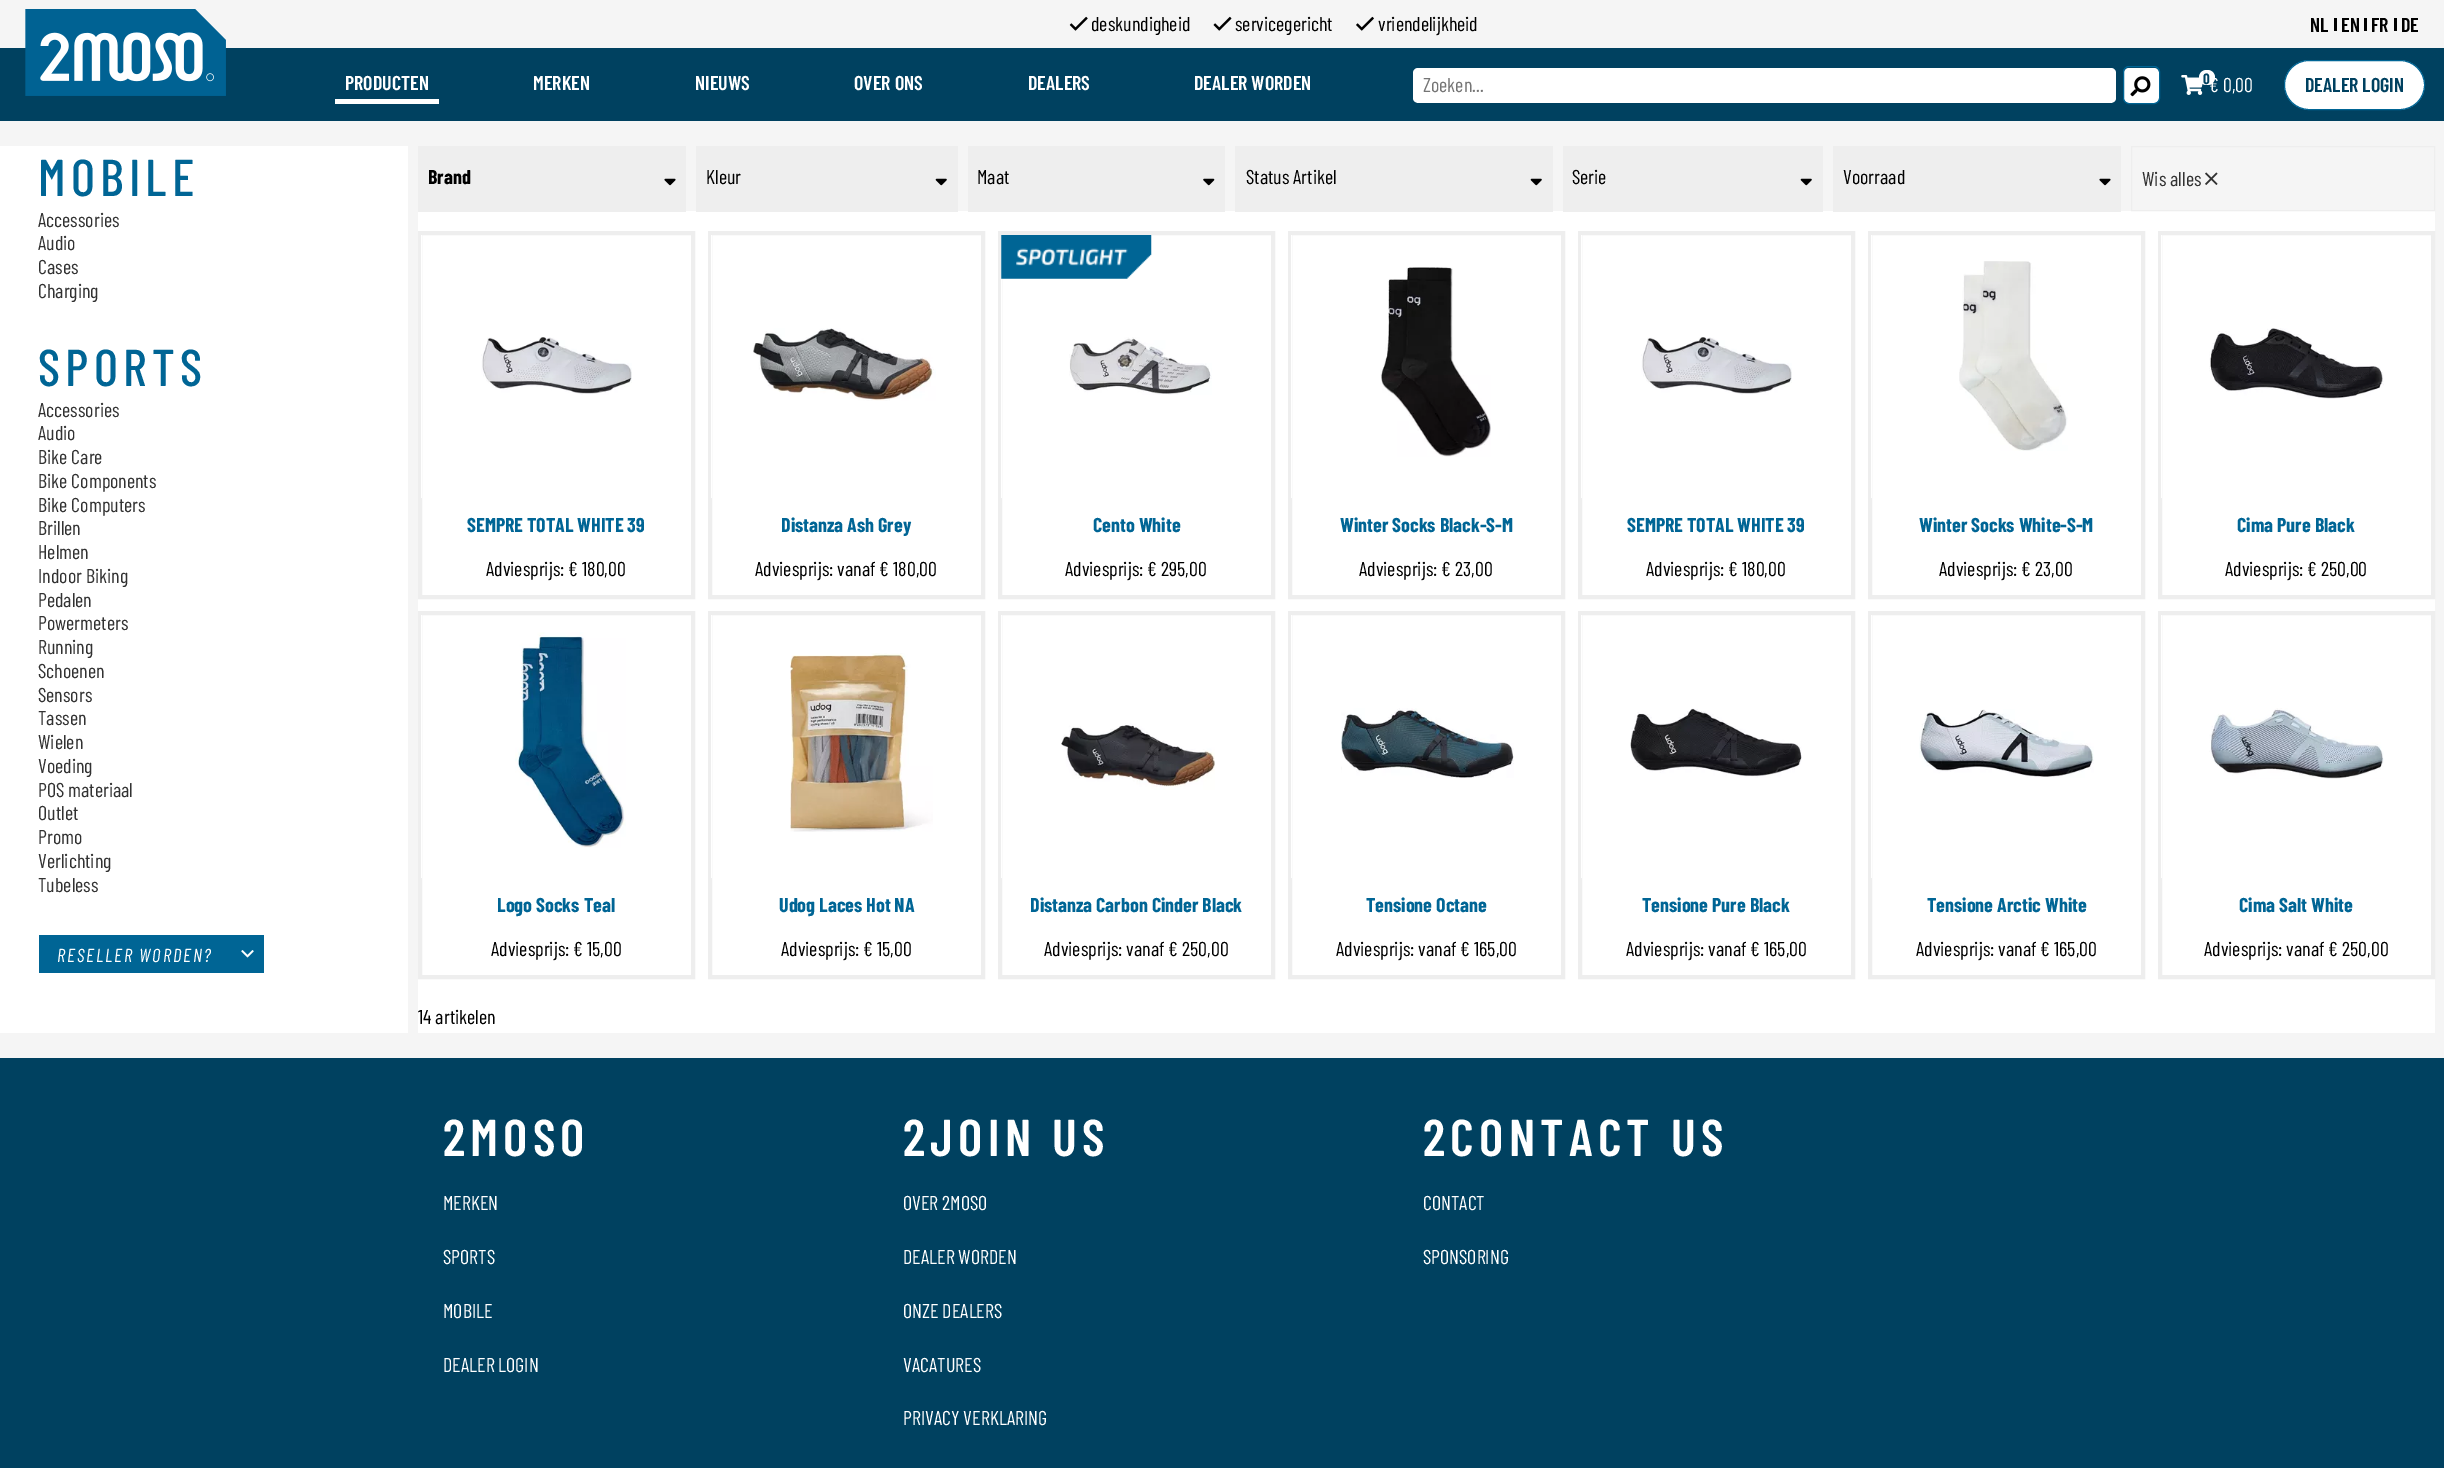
%!PS-Adobe-3.0
%%BoundingBox: 0 0 2444 1468
%%LanguageLevel: 3
%%Pages: 1
%%EndComments
%%BeginProlog
/setink { 3 { 255 div 3 1 roll } repeat setrgbcolor } def
/usefont { [ exch dup neg 0 0 3 -1 roll 0 0 ] selectfont } def
/drawtext { setink usefont moveto show } def
/fillbox { setink rectfill } def
/rrect { 5 dict begin { /r /h /w /y /x } { exch def } forall
  x r add y moveto x w add y 2 copy h add r arct x w add y h add x 1 index r arct
  x y h add x y r arct x y 2 copy exch w add exch r arct closepath end } def
/drawimage { 5 dict begin { /h /w /y /x /name } { exch def } forall
  gsave x y translate w h scale
  w h 8 [w 0 0 h 0 0] name (r) file false 3 colorimage grestore end } def
%%EndProlog
%%BeginSetup
<< /PageSize [2444 1468] >> setpagedevice
%%EndSetup
%%Page: 1 1
0 1468 translate 1 -1 scale
4 setmiterlimit
0 0 2444 1468 245 245 245 fillbox
0 48 2444 73 0 65 96 fillbox
(assets/img1.rgb) 25 9 201 87 drawimage
(assets/img2.rgb) 1069 16 19 15 drawimage
(deskundigheid) 1091 31 /BarlowCondensed-Regular 20 0 0 0 drawtext
(assets/img3.rgb) 1213 16 19 15 drawimage
(servicegericht) 1235 31 /BarlowCondensed-Regular 20 0 0 0 drawtext
(assets/img4.rgb) 1356 16 18 15 drawimage
(vriendelijkheid) 1378 31 /BarlowCondensed-Regular 20 0 0 0 drawtext
(NL) 2310 32 /BarlowCondensed-SemiBold 20 0 0 0 drawtext
2334 18 3 13 0 0 0 fillbox
(EN) 2341 32 /BarlowCondensed-SemiBold 20 0 0 0 drawtext
2364 18 3 13 0 0 0 fillbox
(FR) 2371 32 /BarlowCondensed-SemiBold 20 0 0 0 drawtext
2394 18 3 13 0 0 0 fillbox
(DE) 2401 32 /BarlowCondensed-SemiBold 20 0 0 0 drawtext
335 99 104 5 255 255 255 fillbox
(PRODUCTEN) 345 90 /BarlowCondensed-SemiBold 20 255 255 255 drawtext
(MERKEN) 533 90 /BarlowCondensed-SemiBold 20 255 255 255 drawtext
(NIEUWS) 695 90 /BarlowCondensed-SemiBold 20 255 255 255 drawtext
(OVER ONS) 854 90 /BarlowCondensed-SemiBold 20 255 255 255 drawtext
(DEALERS) 1028 90 /BarlowCondensed-SemiBold 20 255 255 255 drawtext
(DEALER WORDEN) 1194 90 /BarlowCondensed-SemiBold 20 255 255 255 drawtext
1413 68 703 35 5 rrect fill
0 65 96 setink
1411.5 66.5 706 37 5.5 rrect stroke
(Zoeken...) 1423 92 /BarlowCondensed-Regular 20 117 117 117 drawtext
255 255 255 setink
2124 68 35 35 5 rrect fill
0 101 149 setink
2123.5 66.5 36 37 5.5 rrect stroke
(assets/img5.rgb) 2130 76 21 21 drawimage
(assets/img6.rgb) 2181 75 22 20 drawimage
255 255 255 setink
2199 70 16 15 7.5 rrect fill
(€ 0,00) 2209 92 /BarlowCondensed-Regular 20 255 255 255 drawtext
(0) 2203 84 /BarlowCondensed-Bold 15 0 65 96 drawtext
255 255 255 setink
2284.5 60.5 140 49 24.5 rrect gsave fill grestore
0 101 149 setink
stroke
(DEALER LOGIN) 2305 92 /BarlowCondensed-SemiBold 20 0 65 96 drawtext
0 146 408 887 255 255 255 fillbox
/BarlowCondensed-Medium 51.75 usefont
0 101 149 setink
38 196 moveto 5.25 0 (MOBILE) ashow
(Accessories) 38 227 /BarlowCondensed-Regular 20 50 50 50 drawtext
(Audio) 38 250 /BarlowCondensed-Regular 20 50 50 50 drawtext
(Cases) 38 274 /BarlowCondensed-Regular 20 50 50 50 drawtext
(Charging) 38 298 /BarlowCondensed-Regular 20 50 50 50 drawtext
/BarlowCondensed-Medium 51.75 usefont
0 101 149 setink
38 386 moveto 5.25 0 (SPORTS) ashow
(Accessories) 38 417 /BarlowCondensed-Regular 20 50 50 50 drawtext
(Audio) 38 440 /BarlowCondensed-Regular 20 50 50 50 drawtext
(Bike Care) 38 464 /BarlowCondensed-Regular 20 50 50 50 drawtext
(Bike Components) 38 488 /BarlowCondensed-Regular 20 50 50 50 drawtext
(Bike Computers) 38 512 /BarlowCondensed-Regular 20 50 50 50 drawtext
(Brillen) 38 535 /BarlowCondensed-Regular 20 50 50 50 drawtext
(Helmen) 38 559 /BarlowCondensed-Regular 20 50 50 50 drawtext
(Indoor Biking) 38 583 /BarlowCondensed-Regular 20 50 50 50 drawtext
(Pedalen) 38 607 /BarlowCondensed-Regular 20 50 50 50 drawtext
(Powermeters) 38 630 /BarlowCondensed-Regular 20 50 50 50 drawtext
(Running) 38 654 /BarlowCondensed-Regular 20 50 50 50 drawtext
(Schoenen) 38 678 /BarlowCondensed-Regular 20 50 50 50 drawtext
(Sensors) 38 702 /BarlowCondensed-Regular 20 50 50 50 drawtext
(Tassen) 38 725 /BarlowCondensed-Regular 20 50 50 50 drawtext
(Wielen) 38 749 /BarlowCondensed-Regular 20 50 50 50 drawtext
(Voeding) 38 773 /BarlowCondensed-Regular 20 50 50 50 drawtext
(POS materiaal) 38 797 /BarlowCondensed-Regular 20 50 50 50 drawtext
(Outlet) 38 820 /BarlowCondensed-Regular 20 50 50 50 drawtext
(Promo) 38 844 /BarlowCondensed-Regular 20 50 50 50 drawtext
(Verlichting) 38 868 /BarlowCondensed-Regular 20 50 50 50 drawtext
(Tubeless) 38 892 /BarlowCondensed-Regular 20 50 50 50 drawtext
39 935 225 38 0 101 149 fillbox
/BarlowCondensed-Italic 18.75 usefont
255 255 255 setink
57 962 moveto 1.9 0 (RESELLER WORDEN?) ashow
(assets/img7.rgb) 241 950 13 8 drawimage
418 211 2017 822 255 255 255 fillbox
418 146 268 66 238 238 238 fillbox
(Brand) 428 184 /BarlowCondensed-Bold 20 0 0 0 drawtext
(assets/img8.rgb) 664 178 12 8 drawimage
696 146 262 66 238 238 238 fillbox
(Kleur) 706 184 /BarlowCondensed-Regular 20 0 0 0 drawtext
(assets/img9.rgb) 935 178 12 8 drawimage
968 146 257 66 238 238 238 fillbox
(Maat) 977 184 /BarlowCondensed-Regular 20 0 0 0 drawtext
(assets/img10.rgb) 1203 178 12 8 drawimage
1235 146 318 66 238 238 238 fillbox
(Status Artikel) 1246 184 /BarlowCondensed-Regular 20 0 0 0 drawtext
(assets/img9.rgb) 1530 178 12 8 drawimage
1563 146 260 66 238 238 238 fillbox
(Serie) 1572 184 /BarlowCondensed-Regular 20 0 0 0 drawtext
(assets/img9.rgb) 1800 178 12 8 drawimage
1833 146 288 66 238 238 238 fillbox
(Voorraad) 1843 184 /BarlowCondensed-Regular 20 0 0 0 drawtext
(assets/img8.rgb) 2099 178 12 8 drawimage
238 238 238 setink
2131.5 146.5 303 64 rectstroke
(Wis alles) 2142 186 /BarlowCondensed-Regular 20 50 50 50 drawtext
(assets/img11.rgb) 2205 172 13 13 drawimage
238 238 238 setink
4 setlinewidth
420 233 273 364 rectstroke
421 235 1 263 255 255 255 fillbox
(assets/img12.rgb) 481 337 151 58 drawimage
(SEMPRE TOTAL WHITE 39) 467 532 /BarlowCondensed-Bold 20 0 101 149 drawtext
(Adviesprijs: € 180,00) 486 576 /BarlowCondensed-Regular 20 0 0 0 drawtext
238 238 238 setink
710 233 273 364 rectstroke
711 235 1 263 255 255 255 fillbox
(assets/img13.rgb) 753 328 183 73 drawimage
(Distanza Ash Grey) 781 532 /BarlowCondensed-Bold 20 0 101 149 drawtext
(Adviesprijs: vanaf € 180,00) 755 576 /BarlowCondensed-Regular 20 0 0 0 drawtext
238 238 238 setink
1000 233 273 364 rectstroke
1001 235 1 263 255 255 255 fillbox
(assets/img14.rgb) 1069 337 143 58 drawimage
(assets/img15.rgb) 1001 235 151 44 drawimage
(Cento White) 1093 532 /BarlowCondensed-Bold 20 0 101 149 drawtext
(Adviesprijs: € 295,00) 1065 576 /BarlowCondensed-Regular 20 0 0 0 drawtext
238 238 238 setink
1290 233 273 364 rectstroke
1291 235 1 263 255 255 255 fillbox
(assets/img16.rgb) 1380 267 111 190 drawimage
(Winter Socks Black-S-M) 1340 532 /BarlowCondensed-Bold 20 0 101 149 drawtext
(Adviesprijs: € 23,00) 1359 576 /BarlowCondensed-Regular 20 0 0 0 drawtext
238 238 238 setink
1580 233 273 364 rectstroke
1581 235 1 263 255 255 255 fillbox
(assets/img12.rgb) 1641 337 151 58 drawimage
(SEMPRE TOTAL WHITE 39) 1627 532 /BarlowCondensed-Bold 20 0 101 149 drawtext
(Adviesprijs: € 180,00) 1646 576 /BarlowCondensed-Regular 20 0 0 0 drawtext
238 238 238 setink
1870 233 273 364 rectstroke
1871 235 1 263 255 255 255 fillbox
(assets/img17.rgb) 1959 261 109 190 drawimage
(Winter Socks White-S-M) 1919 532 /BarlowCondensed-Bold 20 0 101 149 drawtext
(Adviesprijs: € 23,00) 1939 576 /BarlowCondensed-Regular 20 0 0 0 drawtext
238 238 238 setink
2160 233 273 364 rectstroke
2161 235 1 263 255 255 255 fillbox
(assets/img18.rgb) 2209 328 175 71 drawimage
(Cima Pure Black) 2237 532 /BarlowCondensed-Bold 20 0 101 149 drawtext
(Adviesprijs: € 250,00) 2225 576 /BarlowCondensed-Regular 20 0 0 0 drawtext
238 238 238 setink
420 613 273 364 rectstroke
421 615 1 263 255 255 255 fillbox
(assets/img19.rgb) 515 632 111 216 drawimage
(Logo Socks Teal) 497 912 /BarlowCondensed-Bold 20 0 101 149 drawtext
(Adviesprijs: € 15,00) 491 956 /BarlowCondensed-Regular 20 0 0 0 drawtext
238 238 238 setink
710 613 273 364 rectstroke
711 615 1 263 255 255 255 fillbox
(assets/img20.rgb) 790 653 143 179 drawimage
(Udog Laces Hot NA) 779 912 /BarlowCondensed-Bold 20 0 101 149 drawtext
(Adviesprijs: € 15,00) 781 956 /BarlowCondensed-Regular 20 0 0 0 drawtext
238 238 238 setink
1000 613 273 364 rectstroke
1001 615 1 263 255 255 255 fillbox
(assets/img21.rgb) 1061 723 154 67 drawimage
(Distanza Carbon Cinder Black) 1030 912 /BarlowCondensed-Bold 20 0 101 149 drawtext
(Adviesprijs: vanaf € 250,00) 1044 956 /BarlowCondensed-Regular 20 0 0 0 drawtext
238 238 238 setink
1290 613 273 364 rectstroke
1291 615 1 263 255 255 255 fillbox
(assets/img22.rgb) 1341 708 173 70 drawimage
(Tensione Octane) 1366 912 /BarlowCondensed-Bold 20 0 101 149 drawtext
(Adviesprijs: vanaf € 165,00) 1336 956 /BarlowCondensed-Regular 20 0 0 0 drawtext
238 238 238 setink
1580 613 273 364 rectstroke
1581 615 1 263 255 255 255 fillbox
(assets/img23.rgb) 1630 708 172 70 drawimage
(Tensione Pure Black) 1642 912 /BarlowCondensed-Bold 20 0 101 149 drawtext
(Adviesprijs: vanaf € 165,00) 1626 956 /BarlowCondensed-Regular 20 0 0 0 drawtext
238 238 238 setink
1870 613 273 364 rectstroke
1871 615 1 263 255 255 255 fillbox
(assets/img24.rgb) 1919 709 175 69 drawimage
(Tensione Arctic White) 1927 912 /BarlowCondensed-Bold 20 0 101 149 drawtext
(Adviesprijs: vanaf € 165,00) 1916 956 /BarlowCondensed-Regular 20 0 0 0 drawtext
238 238 238 setink
2160 613 273 364 rectstroke
2161 615 1 263 255 255 255 fillbox
(assets/img25.rgb) 2209 708 175 71 drawimage
(Cima Salt White) 2239 912 /BarlowCondensed-Bold 20 0 101 149 drawtext
(Adviesprijs: vanaf € 250,00) 2204 956 /BarlowCondensed-Regular 20 0 0 0 drawtext
(14 artikelen) 418 1024 /BarlowCondensed-Regular 20 0 0 0 drawtext
0 1058 2444 410 0 65 96 fillbox
/BarlowCondensed-SemiBold 51.75 usefont
255 255 255 setink
443 1156 moveto 5.25 0 (2MOSO) ashow
(MERKEN) 443 1210 /BarlowCondensed-Regular 20 255 255 255 drawtext
(SPORTS) 443 1264 /BarlowCondensed-Regular 20 255 255 255 drawtext
(MOBILE) 443 1318 /BarlowCondensed-Regular 20 255 255 255 drawtext
(DEALER LOGIN) 443 1372 /BarlowCondensed-Regular 20 255 255 255 drawtext
/BarlowCondensed-SemiBold 51.75 usefont
903 1156 moveto 5.25 0 (2JOIN US) ashow
(OVER 2MOSO) 903 1210 /BarlowCondensed-Regular 20 255 255 255 drawtext
(DEALER WORDEN) 903 1264 /BarlowCondensed-Regular 20 255 255 255 drawtext
(ONZE DEALERS) 903 1318 /BarlowCondensed-Regular 20 255 255 255 drawtext
(VACATURES) 903 1372 /BarlowCondensed-Regular 20 255 255 255 drawtext
(PRIVACY VERKLARING) 903 1425 /BarlowCondensed-Regular 20 255 255 255 drawtext
/BarlowCondensed-SemiBold 51.75 usefont
1423 1156 moveto 5.25 0 (2CONTACT US) ashow
(CONTACT) 1423 1210 /BarlowCondensed-Regular 20 255 255 255 drawtext
(SPONSORING) 1423 1264 /BarlowCondensed-Regular 20 255 255 255 drawtext
showpage
%%EOF
